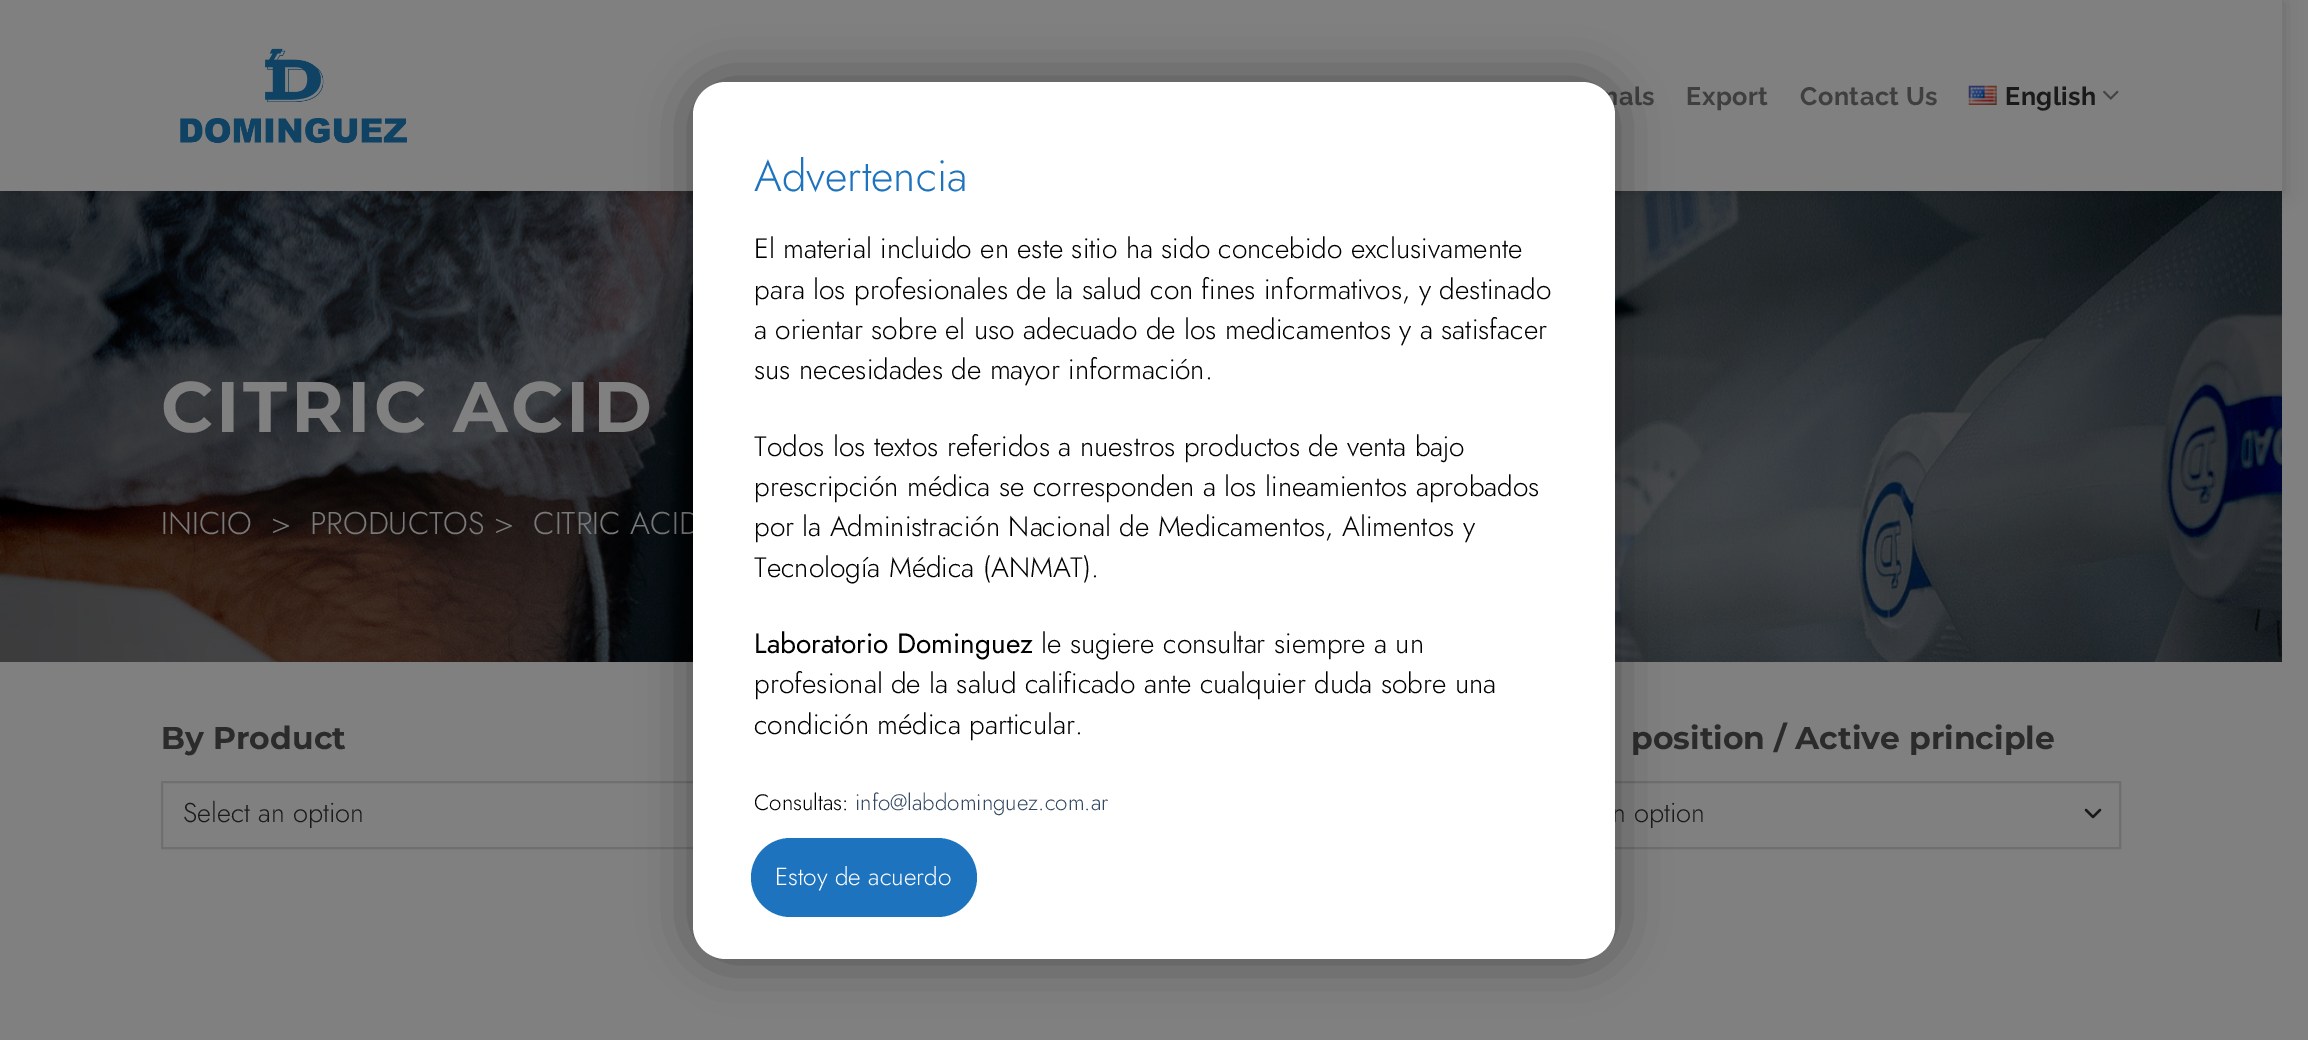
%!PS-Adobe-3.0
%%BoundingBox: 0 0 2308 1040
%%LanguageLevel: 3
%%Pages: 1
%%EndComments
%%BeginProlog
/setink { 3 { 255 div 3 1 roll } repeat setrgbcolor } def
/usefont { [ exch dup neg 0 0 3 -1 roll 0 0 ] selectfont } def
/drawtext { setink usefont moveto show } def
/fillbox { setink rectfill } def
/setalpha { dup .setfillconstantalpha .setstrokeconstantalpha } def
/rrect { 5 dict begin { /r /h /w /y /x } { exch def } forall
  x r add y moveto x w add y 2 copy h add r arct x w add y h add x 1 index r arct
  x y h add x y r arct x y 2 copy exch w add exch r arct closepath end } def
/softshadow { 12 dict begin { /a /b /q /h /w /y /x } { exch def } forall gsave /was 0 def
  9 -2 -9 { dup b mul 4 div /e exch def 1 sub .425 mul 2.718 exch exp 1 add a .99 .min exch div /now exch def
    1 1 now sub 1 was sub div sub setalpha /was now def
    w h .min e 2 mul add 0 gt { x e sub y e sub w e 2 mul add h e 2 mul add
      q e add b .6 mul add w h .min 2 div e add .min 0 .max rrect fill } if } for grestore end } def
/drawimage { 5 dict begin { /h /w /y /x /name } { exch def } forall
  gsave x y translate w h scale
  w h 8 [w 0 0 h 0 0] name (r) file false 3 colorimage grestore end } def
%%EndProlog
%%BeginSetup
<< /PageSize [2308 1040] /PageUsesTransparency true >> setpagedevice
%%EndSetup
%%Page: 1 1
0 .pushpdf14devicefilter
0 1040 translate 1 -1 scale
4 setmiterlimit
0 0 2308 1040 128 128 128 fillbox
(assets/img4.rgb) 0 191 2282 471 drawimage
0 0 0 setink
2 2 2282 191 0 9 0.15 softshadow
0 0 2282 191 128 128 128 fillbox
(assets/img1.rgb) 180 48 227 96 drawimage
/Raleway-Bold 25.25 usefont
63 63 63 setink
1603 105 moveto 0.5 0 (nals) ashow
1686 105 moveto 0.5 0 (Export) ashow
1800 105 moveto 0.5 0 (Contact Us) ashow
(assets/img2.rgb) 1968 85 29 20 drawimage
26 26 26 setink
2005 105 moveto 0.5 0 (English) ashow
(assets/img3.rgb) 2103 90 16 10 drawimage
/Montserrat-Bold 71.5 usefont
128 128 128 setink
161 432 moveto 3.5 0 (CITRIC ACID) ashow
(INICIO) 161 534 /Jost-Light 31.5 121 121 121 drawtext
(>) 271 534 /Jost-Light 31.5 121 121 121 drawtext
(PRODUCTOS >) 310 534 /Jost-Light 31.5 121 121 121 drawtext
(CITRIC ACID) 533 534 /Jost-Light 31.5 121 121 121 drawtext
(By Product) 161 749 /Montserrat-Bold 31.5 43 43 43 drawtext
111 111 111 setink
2 setlinewidth
162 782 616 66 rectstroke
(Select an option) 183 822 /Jost-Light 27.25 26 26 26 drawtext
(position / Active principle) 1631 749 /Montserrat-Bold 31.5 43 43 43 drawtext
26 26 26 setink
2.3 setlinewidth
1 setlinecap
1 setlinejoin
2086 810 moveto 2093 817 lineto 2100 810 lineto stroke
111 111 111 setink
2 setlinewidth
0 setlinecap
0 setlinejoin
1504 782 616 66 rectstroke
(n option) 1612 822 /Jost-Light 27.25 26 26 26 drawtext
2 2 2 setink
693 82 922 877 33 26 0.36 softshadow
255 255 255 setink
693 82 922 877 33 rrect fill
(Advertencia) 754 191 /Jost-Light 43.75 30 115 190 drawtext
(El material incluido en este sitio ha sido concebido exclusivamente) 754 258 /Jost-Light 28 0 0 0 drawtext
(para los profesionales de la salud con fines informativos, y destinado) 754 299 /Jost-Light 28 0 0 0 drawtext
(a orientar sobre el uso adecuado de los medicamentos y a satisfacer) 754 339 /Jost-Light 28 0 0 0 drawtext
(sus necesidades de mayor información.) 754 379 /Jost-Light 28 0 0 0 drawtext
(Todos los textos referidos a nuestros productos de venta bajo) 754 456 /Jost-Light 28 0 0 0 drawtext
(prescripción médica se corresponden a los lineamientos aprobados) 754 496 /Jost-Light 28 0 0 0 drawtext
(por la Administración Nacional de Medicamentos, Alimentos y) 754 536 /Jost-Light 28 0 0 0 drawtext
(Tecnología Médica \(ANMAT\).) 754 577 /Jost-Light 28 0 0 0 drawtext
(Laboratorio Dominguez) 754 653 /Jost-Regular 28 0 0 0 drawtext
(le sugiere consultar siempre a un) 1041 653 /Jost-Light 28 0 0 0 drawtext
(profesional de la salud calificado ante cualquier duda sobre una) 754 693 /Jost-Light 28 0 0 0 drawtext
(condición médica particular.) 754 734 /Jost-Light 28 0 0 0 drawtext
(Consultas:) 754 810 /Jost-Light 22.4 0 0 0 drawtext
(info@labdominguez.com.ar) 855 810 /Jost-Light 22.4 51 72 98 drawtext
30 115 190 setink
751 838 226 79 39.5 rrect fill
(Estoy de acuerdo) 775 885 /Jost-Light 24.5 255 255 255 drawtext
.poppdf14devicefilter showpage
%%EOF
